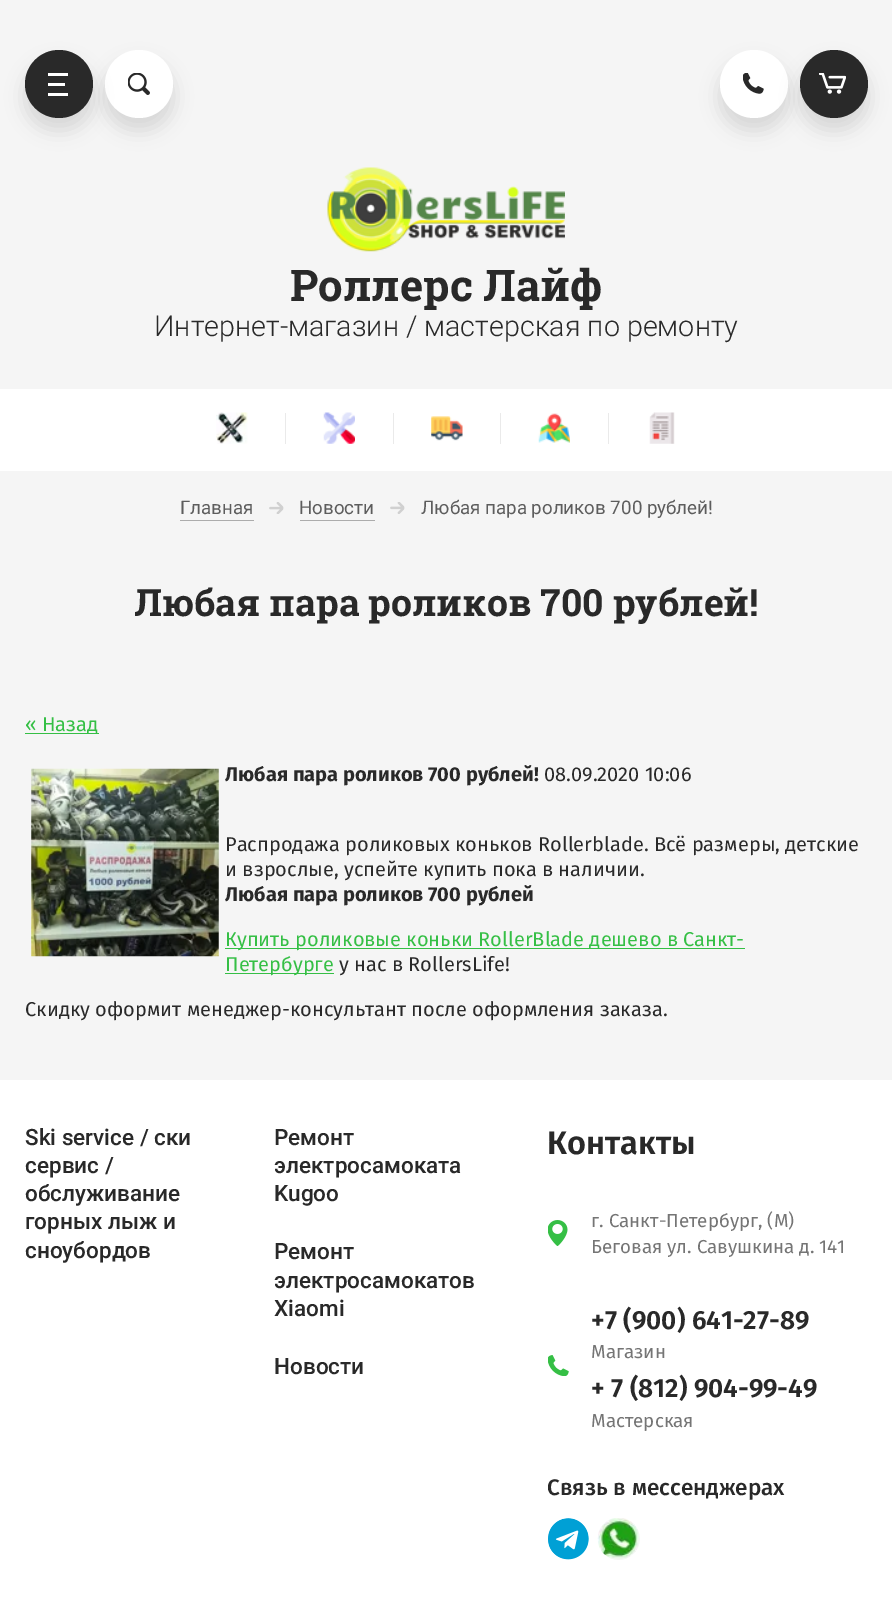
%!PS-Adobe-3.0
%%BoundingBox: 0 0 892 1623
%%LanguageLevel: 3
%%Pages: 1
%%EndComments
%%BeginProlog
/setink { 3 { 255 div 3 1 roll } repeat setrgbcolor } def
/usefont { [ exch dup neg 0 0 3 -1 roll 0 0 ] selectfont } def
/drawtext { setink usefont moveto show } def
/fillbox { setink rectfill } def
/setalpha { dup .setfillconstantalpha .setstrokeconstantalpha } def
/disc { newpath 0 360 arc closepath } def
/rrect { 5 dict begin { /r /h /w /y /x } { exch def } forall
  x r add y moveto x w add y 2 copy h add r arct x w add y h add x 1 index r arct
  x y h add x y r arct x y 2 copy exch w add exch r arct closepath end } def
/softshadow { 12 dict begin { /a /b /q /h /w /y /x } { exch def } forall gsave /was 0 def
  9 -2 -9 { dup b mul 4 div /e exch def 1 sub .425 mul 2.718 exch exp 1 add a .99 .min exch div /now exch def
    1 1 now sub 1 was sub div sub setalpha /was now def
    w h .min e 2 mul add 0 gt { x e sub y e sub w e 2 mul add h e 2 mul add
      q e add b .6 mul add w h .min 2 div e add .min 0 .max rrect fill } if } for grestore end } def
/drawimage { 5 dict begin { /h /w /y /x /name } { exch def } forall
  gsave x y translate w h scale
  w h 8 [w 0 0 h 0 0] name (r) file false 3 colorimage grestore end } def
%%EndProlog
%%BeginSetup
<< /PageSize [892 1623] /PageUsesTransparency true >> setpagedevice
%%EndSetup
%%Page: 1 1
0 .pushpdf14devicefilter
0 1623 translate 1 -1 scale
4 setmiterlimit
0 0 892 1623 245 245 245 fillbox
0 0 0 setink
105 63 68 67 33.5 9.5 0.13 softshadow
255 255 255 setink
139 84 34 disc fill
0 0 0 setink
25 63 68 67 33.5 9.5 0.13 softshadow
41 41 41 setink
59 84 34 disc fill
48 73 20 3 255 255 255 fillbox
48 83 17 3 255 255 255 fillbox
48 93 20 3 255 255 255 fillbox
(assets/img1.rgb) 128 73 22 22 drawimage
0 0 0 setink
720 63 68 67 33.5 9.5 0.13 softshadow
255 255 255 setink
754 84 34 disc fill
(assets/img2.rgb) 743 73 21 21 drawimage
0 0 0 setink
800 63 68 67 33.5 9.5 0.13 softshadow
41 41 41 setink
834 84 34 disc fill
(assets/img3.rgb) 819 73 27 21 drawimage
(assets/img4.rgb) 327 167 238 85 drawimage
(Роллерс Лайф) 290 301 /RobotoSlab-Bold 43.75 41 41 41 drawtext
(Интернет-магазин / мастерская по ремонту) 154 336 /Roboto-Light 28.75 41 41 41 drawtext
0 389 892 82 255 255 255 fillbox
(assets/img5.rgb) 216 412 32 32 drawimage
285 413 1 31 234 234 234 fillbox
(assets/img6.rgb) 323 412 32 32 drawimage
393 413 1 31 234 234 234 fillbox
(assets/img7.rgb) 431 416 32 25 drawimage
500 413 1 31 234 234 234 fillbox
(assets/img8.rgb) 538 413 32 30 drawimage
608 413 1 31 234 234 234 fillbox
(assets/img9.rgb) 649 412 26 32 drawimage
(Главная) 180 514 /Roboto-Regular 18.75 93 93 93 drawtext
180 520 74 1 172 172 172 fillbox
(assets/img10.rgb) 269 502 15 12 drawimage
(Новости) 299 514 /Roboto-Regular 18.75 93 93 93 drawtext
300 520 75 1 172 172 172 fillbox
(assets/img11.rgb) 390 502 15 12 drawimage
(Любая пара роликов 700 рублей!) 421 514 /Roboto-Regular 18.75 93 93 93 drawtext
(Любая пара роликов 700 рублей!) 134 616 /RobotoSlab-Bold 37.5 41 41 41 drawtext
25 733 74 1 53 191 69 fillbox
(« Назад) 25 731 /FiraSans-Regular 20 53 191 69 drawtext
(assets/img12.rgb) 31 768 188 189 drawimage
(Любая пара роликов 700 рублей!) 225 781 /FiraSans-Bold 20 41 41 41 drawtext
(08.09.2020 10:06) 544 781 /FiraSans-Regular 20 41 41 41 drawtext
(Распродажа роликовых коньков Rollerblade. Всё размеры, детские) 225 851 /FiraSans-Regular 20 41 41 41 drawtext
(и взрослые, успейте купить пока в наличии.) 225 876 /FiraSans-Regular 20 41 41 41 drawtext
(Любая пара роликов 700 рублей) 225 901 /FiraSans-Bold 20 41 41 41 drawtext
225 948 520 1 53 191 69 fillbox
(Купить роликовые коньки RollerBlade дешево в Санкт-) 225 946 /FiraSans-Regular 20 53 191 69 drawtext
225 973 109 1 53 191 69 fillbox
(Петербурге) 225 971 /FiraSans-Regular 20 53 191 69 drawtext
(у нас в RollersLife!) 339 971 /FiraSans-Regular 20 41 41 41 drawtext
(Скидку оформит менеджер-консультант после оформления заказа.) 25 1016 /FiraSans-Regular 20 41 41 41 drawtext
0 1080 892 543 255 255 255 fillbox
(Ski service / ски) 25 1145 /Roboto-Medium 22.5 41 41 41 drawtext
(сервис /) 25 1173 /Roboto-Medium 22.5 41 41 41 drawtext
(обслуживание) 25 1201 /Roboto-Medium 22.5 41 41 41 drawtext
(горных лыж и) 25 1229 /Roboto-Medium 22.5 41 41 41 drawtext
(сноубордов) 25 1258 /Roboto-Medium 22.5 41 41 41 drawtext
(Ремонт) 274 1145 /Roboto-Medium 22.5 41 41 41 drawtext
(электросамоката) 274 1173 /Roboto-Medium 22.5 41 41 41 drawtext
(Kugoo) 274 1201 /Roboto-Medium 22.5 41 41 41 drawtext
(Ремонт) 274 1259 /Roboto-Medium 22.5 41 41 41 drawtext
(электросамокатов) 274 1288 /Roboto-Medium 22.5 41 41 41 drawtext
(Xiaomi) 274 1316 /Roboto-Medium 22.5 41 41 41 drawtext
(Новости) 274 1374 /Roboto-Medium 22.5 41 41 41 drawtext
(Контакты) 547 1154 /FiraSans-SemiBold 32.5 41 41 41 drawtext
(assets/img13.rgb) 548 1220 20 26 drawimage
(г. Санкт-Петербург, \(М\)) 591 1227 /FiraSans-Regular 18.75 117 117 117 drawtext
(Беговая ул. Савушкина д. 141) 591 1253 /FiraSans-Regular 18.75 117 117 117 drawtext
(+7 \(900\) 641-27-89) 591 1329 /FiraSans-SemiBold 26.25 41 41 41 drawtext
(Магазин) 591 1358 /FiraSans-Regular 18.75 117 117 117 drawtext
(assets/img14.rgb) 548 1355 21 21 drawimage
(+ 7 \(812\) 904-99-49) 591 1397 /FiraSans-SemiBold 26.25 41 41 41 drawtext
(Мастерская) 591 1427 /FiraSans-Regular 18.75 117 117 117 drawtext
(Связь в мессенджерах) 547 1495 /FiraSans-Medium 22.5 41 41 41 drawtext
(assets/img15.rgb) 548 1518 41 42 drawimage
(assets/img16.rgb) 597 1518 43 42 drawimage
.poppdf14devicefilter showpage
%%EOF
